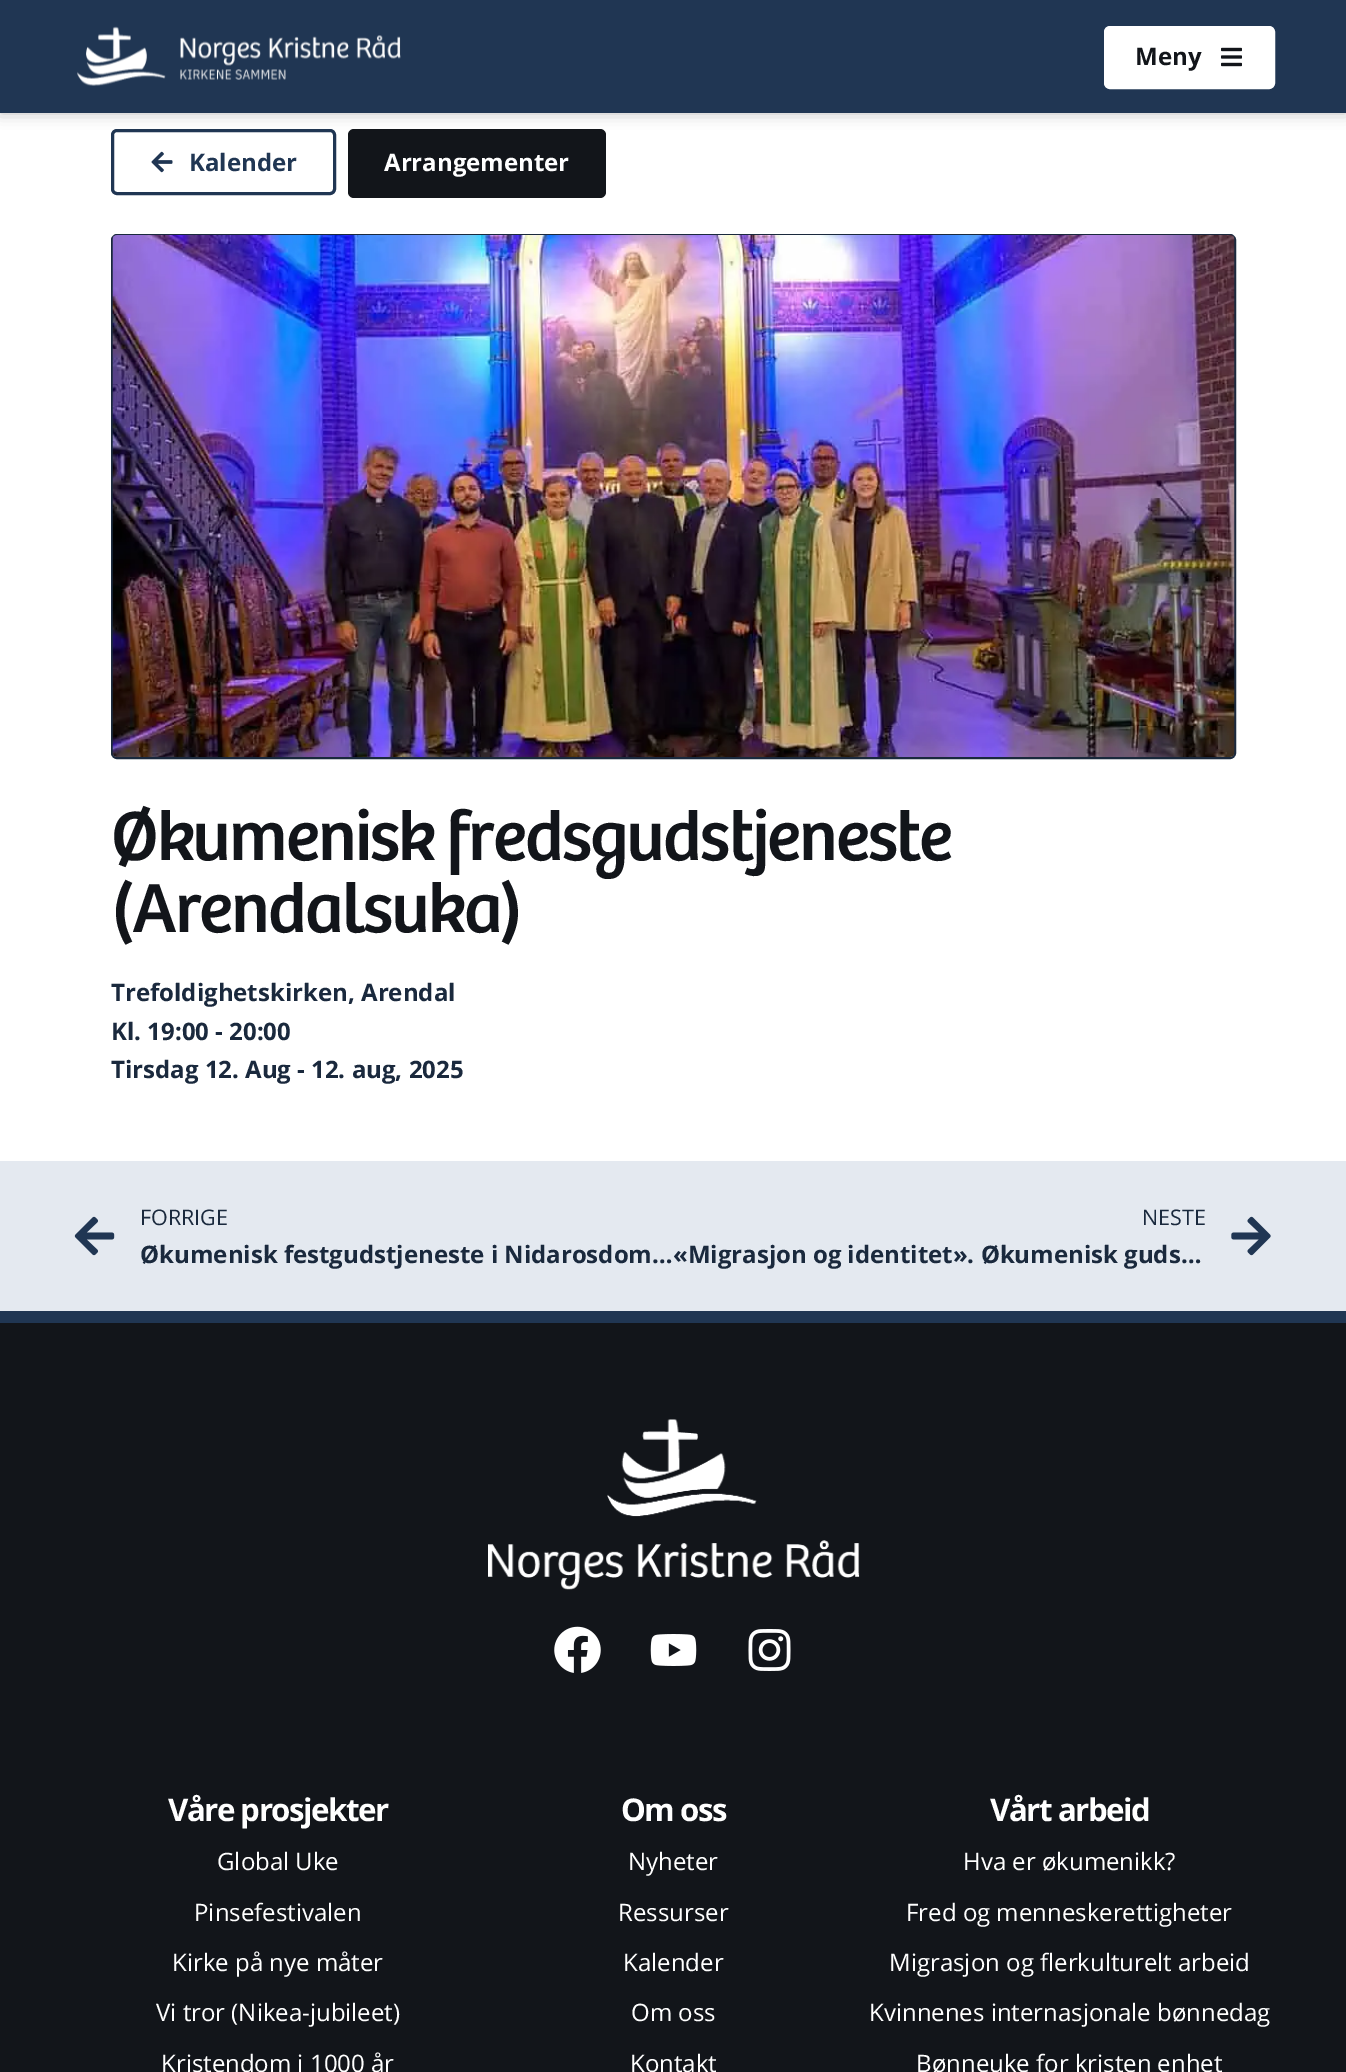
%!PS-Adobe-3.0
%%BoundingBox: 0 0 1346 2072
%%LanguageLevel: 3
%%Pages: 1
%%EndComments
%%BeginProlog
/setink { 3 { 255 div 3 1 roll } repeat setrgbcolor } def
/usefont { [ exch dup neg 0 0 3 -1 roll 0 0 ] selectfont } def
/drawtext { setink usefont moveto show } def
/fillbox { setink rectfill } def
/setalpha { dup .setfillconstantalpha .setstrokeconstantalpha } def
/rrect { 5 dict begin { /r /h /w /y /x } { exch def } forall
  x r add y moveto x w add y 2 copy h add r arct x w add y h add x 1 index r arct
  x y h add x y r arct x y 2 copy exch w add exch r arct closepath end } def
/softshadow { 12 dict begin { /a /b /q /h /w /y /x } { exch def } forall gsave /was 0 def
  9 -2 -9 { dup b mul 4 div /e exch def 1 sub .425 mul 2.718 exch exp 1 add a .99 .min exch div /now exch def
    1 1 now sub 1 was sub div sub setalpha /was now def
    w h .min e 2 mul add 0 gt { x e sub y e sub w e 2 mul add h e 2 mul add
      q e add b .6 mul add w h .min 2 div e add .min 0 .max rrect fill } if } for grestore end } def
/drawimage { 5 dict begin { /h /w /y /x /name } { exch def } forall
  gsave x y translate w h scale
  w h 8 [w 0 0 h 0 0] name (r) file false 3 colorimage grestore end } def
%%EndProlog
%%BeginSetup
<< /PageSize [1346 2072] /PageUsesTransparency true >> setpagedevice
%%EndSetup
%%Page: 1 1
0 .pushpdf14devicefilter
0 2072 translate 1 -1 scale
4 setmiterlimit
0 0 1346 2072 255 255 255 fillbox
32 54 83 setink
3 setlinewidth
112.5 130.5 222 63 4.5 rrect stroke
18 21 26 setink
348 129 258 69 6 rrect fill
0 0 0 setink
0 0 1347 113 0 7.5 0.25 softshadow
0 0 1346 113 32 54 83 fillbox
(assets/img1.rgb) 77 26 324 60 drawimage
255 255 255 setink
1105 27 169 61 5 rrect gsave fill grestore
2 setlinewidth
stroke
(Meny) 1135 65 /OpenSans-Bold 24 18 21 26 drawtext
(assets/img2.rgb) 1221 47 21 20 drawimage
(assets/img3.rgb) 151 151 22 22 drawimage
(Kalender) 189 171 /OpenSans-Bold 24 32 54 83 drawtext
(Arrangementer) 384 171 /OpenSans-Bold 24 255 255 255 drawtext
26 41 61 setink
112 235 1123 523 5 rrect stroke
(assets/img4.rgb) 112 235 1123 522 drawimage
/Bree-Regular 72 usefont
18 21 26 setink
111 860 moveto -2.1 0 (Økumenisk fredsgudstjeneste) ashow
111 932 moveto -2.1 0 (\(Arendalsuka\)) ashow
(Trefoldighetskirken, Arendal) 111 1001 /OpenSans-Bold 24 26 41 61 drawtext
(Kl. 19:00 - 20:00) 111 1040 /OpenSans-Bold 24 26 41 61 drawtext
(Tirsdag 12. Aug - 12. aug, 2025) 111 1078 /OpenSans-Bold 24 26 41 61 drawtext
0 1161 1346 150 228 233 240 fillbox
(assets/img5.rgb) 74 1216 41 40 drawimage
(FORRIGE) 140 1225 /OpenSans-Regular 21.5 26 41 61 drawtext
(Økumenisk festgudstjeneste i Nidarosdom…) 140 1263 /OpenSans-Bold 24 26 41 61 drawtext
(NESTE) 1142 1225 /OpenSans-Regular 21.5 26 41 61 drawtext
(«Migrasjon og identitet». Økumenisk guds…) 673 1263 /OpenSans-Bold 24 26 41 61 drawtext
(assets/img6.rgb) 1231 1216 40 40 drawimage
0 1323 1346 749 18 21 26 fillbox
0 1311 1346 12 32 54 83 fillbox
(assets/img7.rgb) 488 1419 372 171 drawimage
(assets/img8.rgb) 554 1626 47 47 drawimage
(assets/img9.rgb) 650 1634 47 32 drawimage
(assets/img10.rgb) 748 1629 43 42 drawimage
/OpenSans-Bold 31.25 usefont
255 255 255 setink
168 1821 moveto -1.5 0 (Våre prosjekter) ashow
(Global Uke) 217 1870 /OpenSans-Regular 24 255 255 255 drawtext
(Pinsefestivalen) 194 1921 /OpenSans-Regular 24 255 255 255 drawtext
(Kirke på nye måter) 172 1971 /OpenSans-Regular 24 255 255 255 drawtext
(Vi tror \(Nikea-jubileet\)) 156 2021 /OpenSans-Regular 24 255 255 255 drawtext
(Kristendom i 1000 år) 161 2072 /OpenSans-Regular 24 255 255 255 drawtext
/OpenSans-Bold 31.25 usefont
621 1821 moveto -1.5 0 (Om oss) ashow
(Nyheter) 628 1870 /OpenSans-Regular 24 255 255 255 drawtext
(Ressurser) 618 1921 /OpenSans-Regular 24 255 255 255 drawtext
(Kalender) 623 1971 /OpenSans-Regular 24 255 255 255 drawtext
(Om oss) 631 2021 /OpenSans-Regular 24 255 255 255 drawtext
(Kontakt) 630 2072 /OpenSans-Regular 24 255 255 255 drawtext
/OpenSans-Bold 31.25 usefont
990 1821 moveto -1.5 0 (Vårt arbeid) ashow
(Hva er økumenikk?) 963 1870 /OpenSans-Regular 24 255 255 255 drawtext
(Fred og menneskerettigheter) 906 1921 /OpenSans-Regular 24 255 255 255 drawtext
(Migrasjon og flerkulturelt arbeid) 889 1971 /OpenSans-Regular 24 255 255 255 drawtext
(Kvinnenes internasjonale bønnedag) 869 2021 /OpenSans-Regular 24 255 255 255 drawtext
(Bønneuke for kristen enhet) 916 2072 /OpenSans-Regular 24 255 255 255 drawtext
.poppdf14devicefilter showpage
%%EOF
